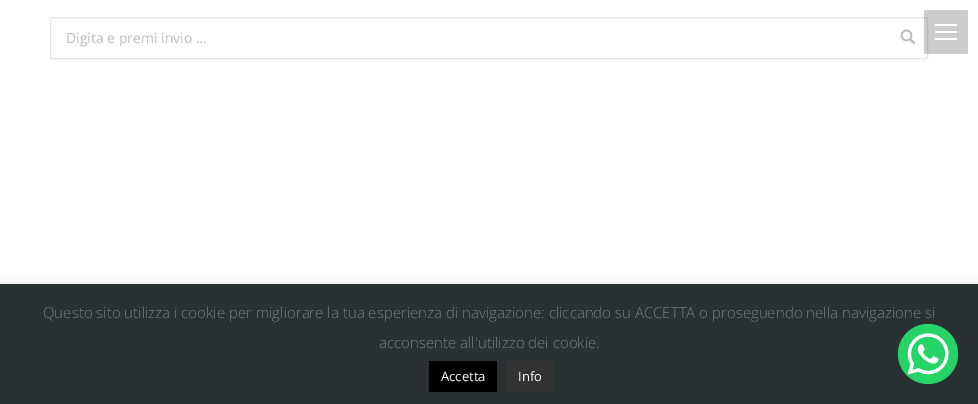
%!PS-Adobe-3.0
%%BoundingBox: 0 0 978 404
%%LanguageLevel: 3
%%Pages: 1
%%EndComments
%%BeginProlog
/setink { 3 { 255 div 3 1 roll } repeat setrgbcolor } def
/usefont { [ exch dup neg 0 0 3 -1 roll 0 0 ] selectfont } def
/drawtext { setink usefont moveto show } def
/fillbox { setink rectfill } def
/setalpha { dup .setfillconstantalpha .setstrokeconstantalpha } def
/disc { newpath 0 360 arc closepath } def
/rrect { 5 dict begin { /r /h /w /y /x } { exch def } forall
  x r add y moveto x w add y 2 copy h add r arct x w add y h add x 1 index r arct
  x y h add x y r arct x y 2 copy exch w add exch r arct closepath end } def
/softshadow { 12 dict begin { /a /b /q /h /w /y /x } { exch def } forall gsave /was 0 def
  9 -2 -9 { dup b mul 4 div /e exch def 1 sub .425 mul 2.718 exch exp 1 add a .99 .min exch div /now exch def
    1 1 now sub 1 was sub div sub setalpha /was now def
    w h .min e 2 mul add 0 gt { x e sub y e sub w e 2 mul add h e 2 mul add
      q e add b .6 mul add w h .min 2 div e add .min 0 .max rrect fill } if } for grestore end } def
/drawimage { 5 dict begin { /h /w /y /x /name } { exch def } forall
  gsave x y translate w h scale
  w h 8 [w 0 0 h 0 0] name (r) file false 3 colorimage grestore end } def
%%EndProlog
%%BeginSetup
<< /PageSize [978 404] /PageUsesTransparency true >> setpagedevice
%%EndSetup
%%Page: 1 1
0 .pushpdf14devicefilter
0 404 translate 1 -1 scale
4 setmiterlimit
0 0 978 404 255 255 255 fillbox
230 230 230 setink
50.5 17.5 877 41 1.5 rrect stroke
(Digita e premi invio …) 66 43 /OpenSans-Regular 14 184 188 190 drawtext
(assets/img1.rgb) 900 29 16 16 drawimage
0.2 setalpha
0 0 0 setink
924 10 44 44 2 rrect fill
1 setalpha
935 31 22 2 255 255 255 fillbox
935 24 22 2 255 255 255 fillbox
935 38 22 2 255 255 255 fillbox
172 171 171 setink
0 283 978 120 0 5 0.3 softshadow
0 284 978 120 41 49 51 fillbox
(Questo sito utilizza i cookie per migliorare la tua esperienza di navigazione: cliccando su ACCETTA o proseguendo nella navigazione si) 43 318 /OpenSans-Light 15 120 125 133 drawtext
(acconsente all'utilizzo dei cookie.) 379 348 /OpenSans-Light 15 120 125 133 drawtext
429 361 68 31 0 0 0 fillbox
(Accetta) 441 381 /OpenSans-Regular 13 255 255 255 drawtext
506 361 48 31 51 51 51 fillbox
(Info) 518 381 /OpenSans-Regular 13 255 255 255 drawtext
37 211 102 setink
928 354 30 disc fill
(assets/img2.rgb) 907 333 42 42 drawimage
.poppdf14devicefilter showpage
%%EOF
